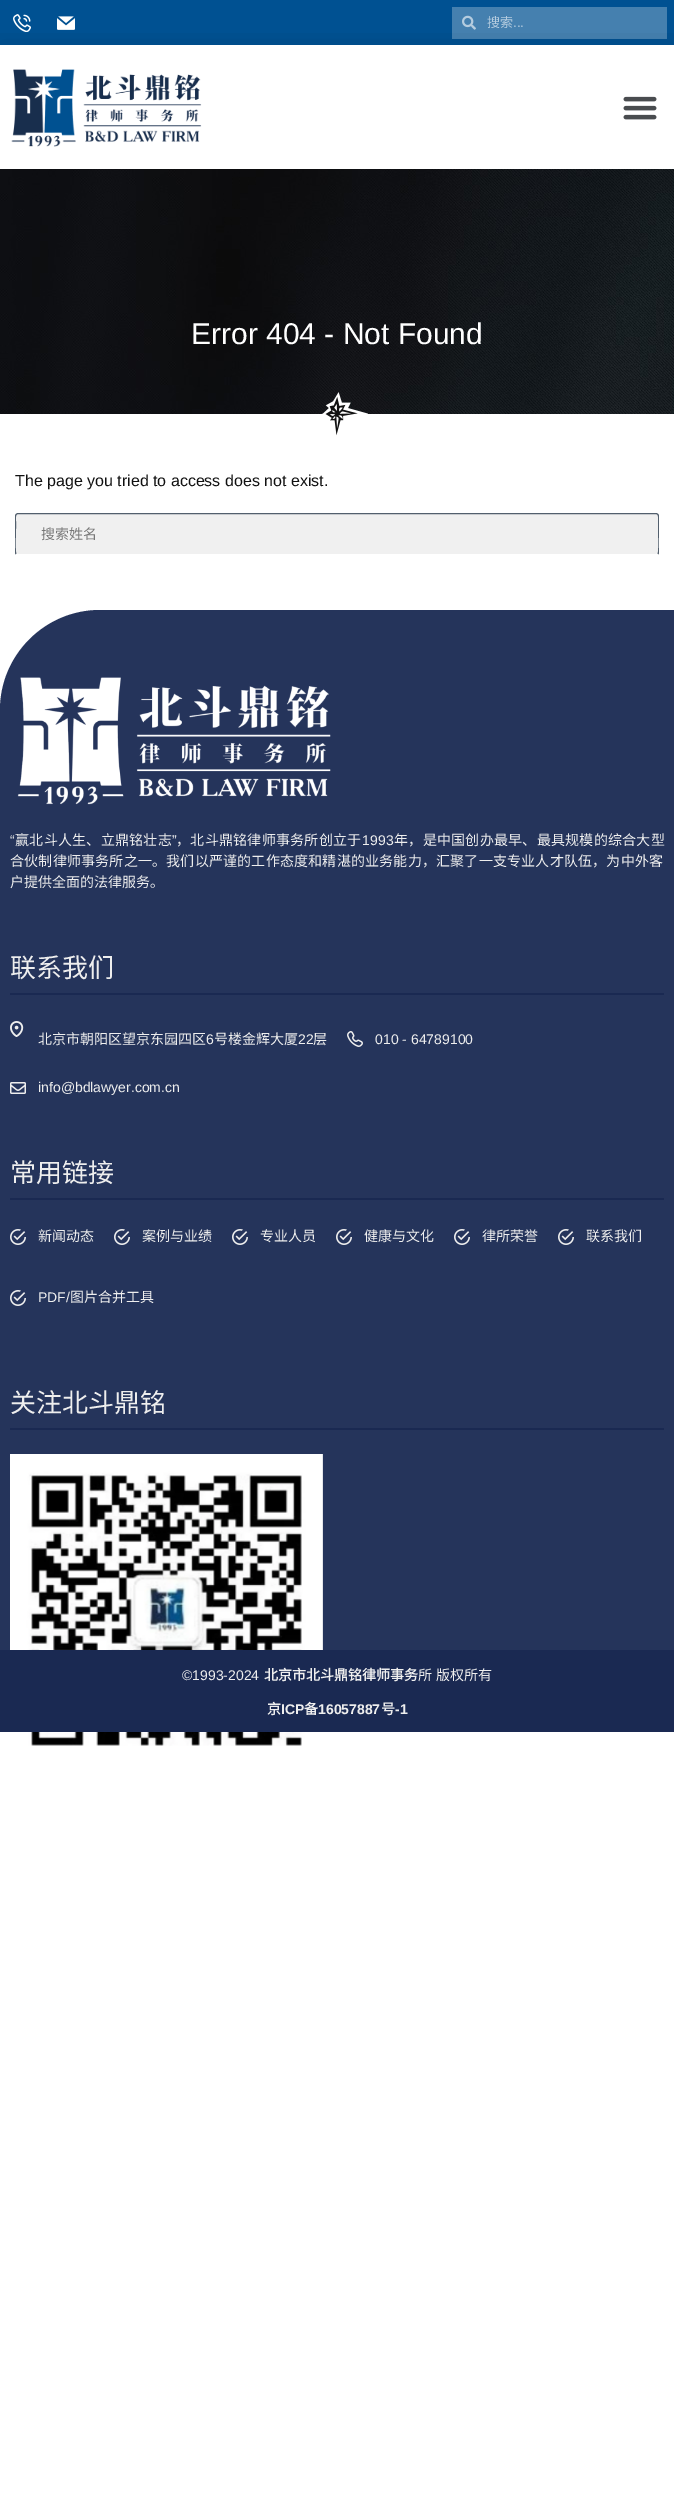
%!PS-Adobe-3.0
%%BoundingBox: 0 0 674 2498
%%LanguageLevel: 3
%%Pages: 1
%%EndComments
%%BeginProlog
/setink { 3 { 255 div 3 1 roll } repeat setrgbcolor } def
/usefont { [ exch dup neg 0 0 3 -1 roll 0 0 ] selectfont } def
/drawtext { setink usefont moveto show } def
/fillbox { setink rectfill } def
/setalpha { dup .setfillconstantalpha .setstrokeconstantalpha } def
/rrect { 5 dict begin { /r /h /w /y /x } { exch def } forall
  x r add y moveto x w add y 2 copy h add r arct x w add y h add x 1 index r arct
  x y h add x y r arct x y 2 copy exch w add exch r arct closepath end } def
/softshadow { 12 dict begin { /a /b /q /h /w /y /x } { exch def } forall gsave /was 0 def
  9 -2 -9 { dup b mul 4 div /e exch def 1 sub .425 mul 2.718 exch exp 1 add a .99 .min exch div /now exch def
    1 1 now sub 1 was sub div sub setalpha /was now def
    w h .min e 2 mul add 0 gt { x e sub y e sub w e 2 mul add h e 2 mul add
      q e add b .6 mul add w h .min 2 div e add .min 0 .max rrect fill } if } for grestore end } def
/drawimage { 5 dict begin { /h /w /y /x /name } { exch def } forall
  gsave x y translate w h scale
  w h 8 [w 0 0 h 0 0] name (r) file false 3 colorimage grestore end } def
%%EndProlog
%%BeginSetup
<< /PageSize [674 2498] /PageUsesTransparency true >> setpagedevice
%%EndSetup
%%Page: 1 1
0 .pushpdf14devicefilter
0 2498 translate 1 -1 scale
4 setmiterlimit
0 0 674 2498 255 255 255 fillbox
0 0 674 45 0 81 146 fillbox
(assets/img3.rgb) 13 14 18 18 drawimage
(assets/img4.rgb) 57 16 18 14 drawimage
452 7 215 32 69 128 175 fillbox
(assets/img5.rgb) 462 15 14 15 drawimage
gsave
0 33 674 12 rectclip
0 0 0 setink
0 50 674 124 0 15 0.16 softshadow
grestore
(assets/img1.rgb) 11 69 191 78 drawimage
(assets/img2.rgb) 623 96 34 24 drawimage
(搜索) 487 27 /NotoSansCJKSC-Regular 13 181 204 223 drawtext
(...) 513 27 /LiberationSans-Regular 13 181 204 223 drawtext
(assets/img6.rgb) 0 169 674 245 drawimage
(Error 404 - Not Found) 191 344 /LiberationSans-Regular 30 255 255 255 drawtext
(assets/img7.rgb) 321 392 47 44 drawimage
(The page you tried to access does not exist.) 15 486 /LiberationSans-Regular 16 17 17 17 drawtext
240 240 240 setink
15 513 644 42 3 rrect fill
255 255 255 setink
658 554 moveto 656 554.5 lineto 18 554.5 lineto 16 554 lineto stroke
gsave
15 513 644 42 rectclip
82 95 109 setink
16 554 moveto 14.5 552 15.5 531.5 15.5 528 curveto 15.5 522 lineto 15.5 520.5 14 513.5 18 513.5 curveto 656 513.5 lineto 660 513.5 658.5 520.5 658.5 522 curveto 658.5 528 lineto 658.5 531.5 659.5 552 658 554 curveto stroke
grestore
(搜索姓名) 41 539 /NotoSansCJKSC-Regular 14 119 119 119 drawtext
37 52 91 setink
100 610 moveto 674 610 lineto 674 1650 lineto 0 1650 lineto 0 710 lineto 0 655 45 610 100 610 curveto closepath fill
(assets/img8.rgb) 17 677 314 128 drawimage
/LiberationSans-Regular 14 usefont
238 238 238 setink
10 845 moveto 0.25 0 (“) ashow
/NotoSansCJKSC-Regular 14 usefont
15 845 moveto 0.25 0 (赢北斗人生、立鼎铭壮志) ashow
/LiberationSans-Regular 14 usefont
172 845 moveto 0.25 0 (”) ashow
/NotoSansCJKSC-Regular 14 usefont
176 845 moveto 0.25 0 (，北斗鼎铭律师事务所创立于) ashow
/LiberationSans-Regular 14 usefont
362 845 moveto 0.25 0 (1993) ashow
/NotoSansCJKSC-Regular 14 usefont
394 845 moveto 0.25 0 (年，是中国创办最早、最具规模的综合大型) ashow
10 866 moveto 0.2 0 (合伙制律师事务所之一。我们以严谨的工作态度和精湛的业务能力，汇聚了一支专业人才队伍，为中外客) ashow
(户提供全面的法律服务。) 10 887 /NotoSansCJKSC-Regular 14 238 238 238 drawtext
(联系我们) 10 977 /NotoSansCJKSC-Regular 26 238 238 238 drawtext
10 993 654 2 26 41 82 fillbox
(assets/img9.rgb) 10 1021 14 16 drawimage
(北京市朝阳区望京东园四区) 38 1044 /NotoSansCJKSC-Regular 14 238 238 238 drawtext
(6) 206 1044 /LiberationSans-Regular 14 238 238 238 drawtext
(号楼金辉大厦) 214 1044 /NotoSansCJKSC-Regular 14 238 238 238 drawtext
(22) 298 1044 /LiberationSans-Regular 14 238 238 238 drawtext
(层) 313 1044 /NotoSansCJKSC-Regular 14 238 238 238 drawtext
(assets/img10.rgb) 347 1031 16 16 drawimage
(010 - 64789100) 375 1044 /LiberationSans-Regular 14 238 238 238 drawtext
(assets/img11.rgb) 10 1082 16 12 drawimage
(info@bdlawyer.com.cn) 38 1092 /LiberationSans-Regular 14 238 238 238 drawtext
(常用链接) 10 1182 /NotoSansCJKSC-Regular 26 238 238 238 drawtext
10 1198 654 2 26 41 82 fillbox
(assets/img12.rgb) 10 1229 16 16 drawimage
(新闻动态) 38 1241 /NotoSansCJKSC-Regular 14 238 238 238 drawtext
(assets/img12.rgb) 114 1229 16 16 drawimage
(案例与业绩) 142 1241 /NotoSansCJKSC-Regular 14 238 238 238 drawtext
(assets/img12.rgb) 232 1229 16 16 drawimage
(专业人员) 260 1241 /NotoSansCJKSC-Regular 14 238 238 238 drawtext
(assets/img12.rgb) 336 1229 16 16 drawimage
(健康与文化) 364 1241 /NotoSansCJKSC-Regular 14 238 238 238 drawtext
(assets/img12.rgb) 454 1229 16 16 drawimage
(律所荣誉) 482 1241 /NotoSansCJKSC-Regular 14 238 238 238 drawtext
(assets/img12.rgb) 558 1229 16 16 drawimage
(联系我们) 586 1241 /NotoSansCJKSC-Regular 14 238 238 238 drawtext
(assets/img12.rgb) 10 1290 16 16 drawimage
(PDF/) 38 1302 /LiberationSans-Regular 14 238 238 238 drawtext
(图片合并工具) 70 1302 /NotoSansCJKSC-Regular 14 238 238 238 drawtext
(关注北斗鼎铭) 10 1412 /NotoSansCJKSC-Regular 26 238 238 238 drawtext
10 1428 654 2 26 41 82 fillbox
(assets/img13.rgb) 10 1454 313 292 drawimage
0 1650 674 82 26 41 82 fillbox
(©1993-2024) 182 1680 /LiberationSans-Regular 14 238 238 238 drawtext
(北京市北斗鼎铭律师事务) 264 1680 /NotoSansCJKSC-Bold 14 238 238 238 drawtext
/NotoSansCJKSC-Regular 14 usefont
418 1680 moveto 1 0 32 (所 版权所有) widthshow
(京) 267 1714 /NotoSansCJKSC-Bold 14 238 238 238 drawtext
(ICP) 281 1714 /LiberationSans-Bold 14 238 238 238 drawtext
(备) 304 1714 /NotoSansCJKSC-Bold 14 238 238 238 drawtext
(16057887) 318 1714 /LiberationSans-Bold 14 238 238 238 drawtext
(号) 381 1714 /NotoSansCJKSC-Bold 14 238 238 238 drawtext
(-1) 395 1714 /LiberationSans-Bold 14 238 238 238 drawtext
.poppdf14devicefilter showpage
%%EOF
